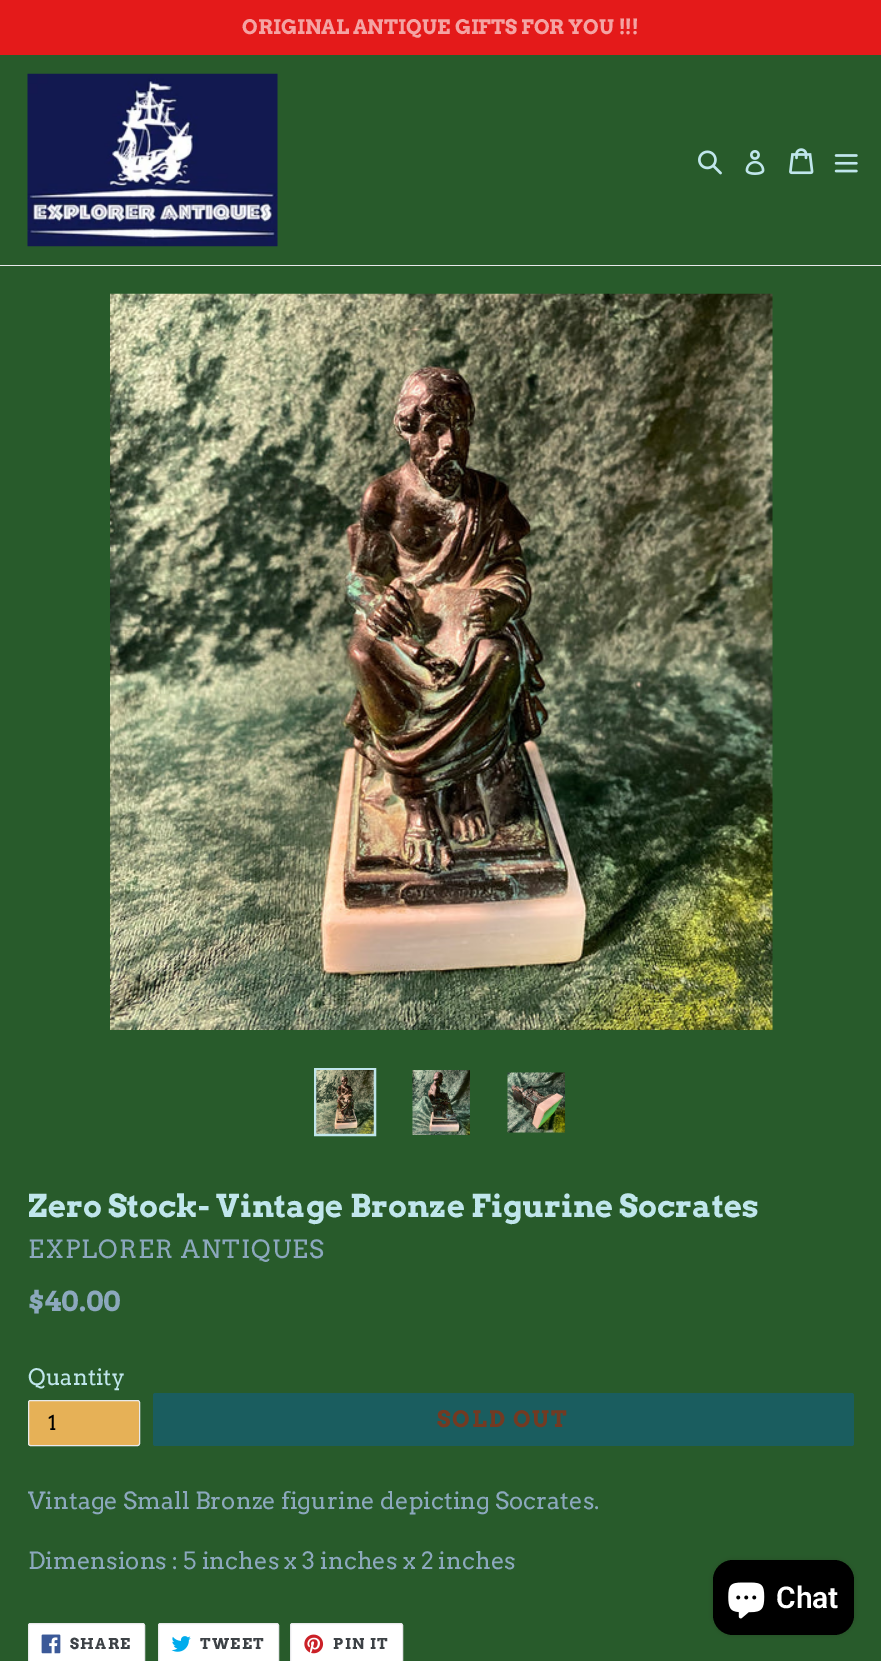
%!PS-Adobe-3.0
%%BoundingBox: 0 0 881 1661
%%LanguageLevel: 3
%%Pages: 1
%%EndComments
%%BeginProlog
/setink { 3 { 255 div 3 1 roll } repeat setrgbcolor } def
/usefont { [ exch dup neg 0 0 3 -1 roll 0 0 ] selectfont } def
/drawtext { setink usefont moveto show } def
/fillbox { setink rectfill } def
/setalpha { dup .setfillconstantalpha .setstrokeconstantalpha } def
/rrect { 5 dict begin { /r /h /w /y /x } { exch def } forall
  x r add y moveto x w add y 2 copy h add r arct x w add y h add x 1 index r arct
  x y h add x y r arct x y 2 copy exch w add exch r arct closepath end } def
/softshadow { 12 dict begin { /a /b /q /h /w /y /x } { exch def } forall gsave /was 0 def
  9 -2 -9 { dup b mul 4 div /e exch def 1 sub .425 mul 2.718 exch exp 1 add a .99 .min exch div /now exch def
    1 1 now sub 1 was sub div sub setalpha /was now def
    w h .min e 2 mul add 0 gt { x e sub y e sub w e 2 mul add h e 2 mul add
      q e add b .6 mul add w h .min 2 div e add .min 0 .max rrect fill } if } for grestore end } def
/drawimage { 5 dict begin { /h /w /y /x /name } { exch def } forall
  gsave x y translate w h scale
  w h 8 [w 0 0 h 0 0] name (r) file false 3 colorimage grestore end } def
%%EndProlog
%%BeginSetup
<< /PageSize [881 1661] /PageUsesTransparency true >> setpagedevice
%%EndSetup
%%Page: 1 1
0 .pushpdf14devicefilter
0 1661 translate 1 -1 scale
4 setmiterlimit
0 0 881 1661 40 91 43 fillbox
0 0 881 55 228 26 26 fillbox
(ORIGINAL ANTIQUE GIFTS FOR YOU !!!) 242 34 /Arvo-Bold 20 244 163 163 drawtext
0 265 881 1 232 233 235 fillbox
(assets/img1.rgb) 27 73 251 174 drawimage
(assets/img2.rgb) 698 150 24 25 drawimage
(assets/img3.rgb) 745 150 20 25 drawimage
(assets/img4.rgb) 789 148 25 27 drawimage
(assets/img5.rgb) 834 154 24 19 drawimage
(assets/img6.rgb) 110 293 663 737 drawimage
192 230 236 setink
3 setlinewidth
315.5 1069.5 59 65 rectstroke
(assets/img7.rgb) 316 1070 58 64 drawimage
(assets/img8.rgb) 412 1070 58 65 drawimage
(assets/img9.rgb) 507 1072 58 61 drawimage
(Zero Stock- Vintage Bronze Figurine Socrates) 28 1217 /Arvo-Bold 31.25 192 230 236 drawtext
/Arvo-Regular 25 usefont
140 168 189 setink
28 1258 moveto 1.25 0 (EXPLORER ANTIQUES) ashow
($40.00) 28 1311 /Arvo-Bold 27.5 140 168 189 drawtext
(Quantity) 28 1385 /Arvo-Regular 22.5 192 230 236 drawtext
230 177 87 setink
28.5 1400.5 111 45 2 rrect gsave fill grestore
232 233 235 setink
1 setlinewidth
stroke
(1) 48 1430 /Arvo-Regular 20 0 0 0 drawtext
26 93 95 setink
153 1393 701 53 2.5 rrect fill
/Arvo-Bold 22.5 usefont
115 58 34 setink
437 1427 moveto 1.75 0 (SOLD OUT) ashow
(Vintage Small Bronze figurine depicting Socrates.) 28 1509 /Arvo-Regular 23.75 140 168 189 drawtext
(Dimensions : 5 inches x 3 inches x 2 inches) 28 1569 /Arvo-Regular 23.75 140 168 189 drawtext
255 255 255 setink
28.5 1623.5 116 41 2 rrect gsave fill grestore
232 233 235 setink
stroke
(assets/img10.rgb) 41 1634 20 20 drawimage
/Arvo-Bold 15 usefont
61 66 70 setink
70 1649 moveto 1.25 0 (SHARE) ashow
255 255 255 setink
158.5 1623.5 120 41 2 rrect gsave fill grestore
232 233 235 setink
stroke
(assets/img11.rgb) 171 1636 20 16 drawimage
61 66 70 setink
200 1649 moveto 1.25 0 (TWEET) ashow
255 255 255 setink
290.5 1623.5 112 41 2 rrect gsave fill grestore
232 233 235 setink
stroke
(assets/img12.rgb) 304 1634 20 20 drawimage
61 66 70 setink
333 1649 moveto 1.25 0 (PIN IT) ashow
0 0 0 setink
713 1560 141 75 20 3 0.15 softshadow
713 1560 141 75 20 rrect fill
(assets/img13.rgb) 728 1582 37 37 drawimage
(Chat) 776 1608 /Roboto-SemiBold 30 255 255 255 drawtext
.poppdf14devicefilter showpage
%%EOF
